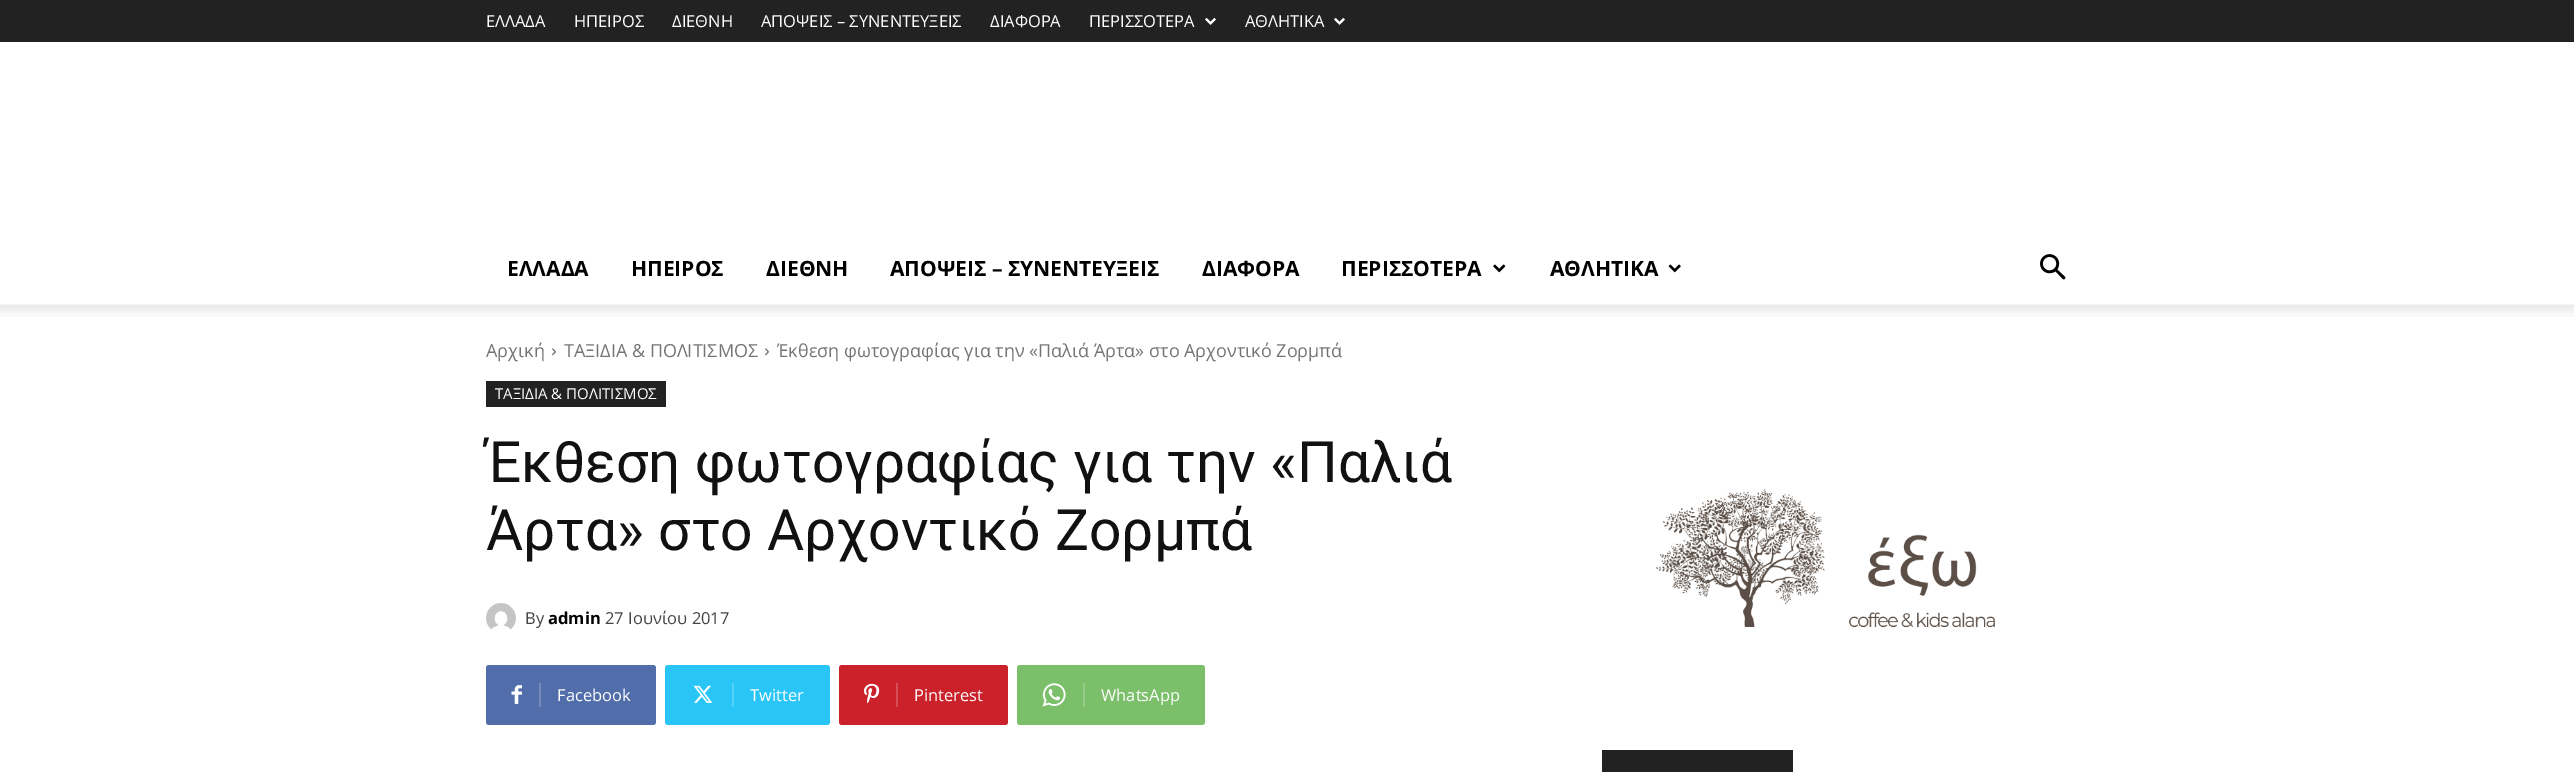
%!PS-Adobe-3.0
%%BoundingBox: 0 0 2574 772
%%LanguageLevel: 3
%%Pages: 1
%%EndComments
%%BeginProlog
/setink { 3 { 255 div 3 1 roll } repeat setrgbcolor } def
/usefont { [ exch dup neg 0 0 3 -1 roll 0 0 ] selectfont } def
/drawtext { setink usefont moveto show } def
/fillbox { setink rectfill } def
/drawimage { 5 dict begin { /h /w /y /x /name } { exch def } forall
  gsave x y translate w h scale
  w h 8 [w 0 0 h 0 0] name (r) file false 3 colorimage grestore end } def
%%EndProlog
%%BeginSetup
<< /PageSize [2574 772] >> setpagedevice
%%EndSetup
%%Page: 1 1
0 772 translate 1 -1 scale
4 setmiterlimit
0 0 2574 772 255 255 255 fillbox
0 0 2574 42 34 34 34 fillbox
(ΕΛΛΑΔΑ) 486 27 /OpenSans-Regular 16.5 255 255 255 drawtext
(ΗΠΕΙΡΟΣ) 574 27 /OpenSans-Regular 16.5 255 255 255 drawtext
(ΔΙΕΘΝΗ) 672 27 /OpenSans-Regular 16.5 255 255 255 drawtext
(ΑΠΟΨΕΙΣ – ΣΥΝΕΝΤΕΥΞΕΙΣ) 761 27 /OpenSans-Regular 16.5 255 255 255 drawtext
(ΔΙΑΦΟΡΑ) 990 27 /OpenSans-Regular 16.5 255 255 255 drawtext
(ΠΕΡΙΣΣΟΤΕΡΑ) 1089 27 /OpenSans-Regular 16.5 255 255 255 drawtext
(assets/img1.rgb) 1205 18 11 7 drawimage
(ΑΘΛΗΤΙΚΑ) 1245 27 /OpenSans-Regular 16.5 255 255 255 drawtext
(assets/img1.rgb) 1334 18 11 7 drawimage
(ΕΛΛΑΔΑ) 507 276 /OpenSans-Bold 21 0 0 0 drawtext
(ΗΠΕΙΡΟΣ) 631 276 /OpenSans-Bold 21 0 0 0 drawtext
(ΔΙΕΘΝΗ) 766 276 /OpenSans-Bold 21 0 0 0 drawtext
(ΑΠΟΨΕΙΣ – ΣΥΝΕΝΤΕΥΞΕΙΣ) 890 276 /OpenSans-Bold 21 0 0 0 drawtext
(ΔΙΑΦΟΡΑ) 1202 276 /OpenSans-Bold 21 0 0 0 drawtext
(ΠΕΡΙΣΣΟΤΕΡΑ) 1341 276 /OpenSans-Bold 21 0 0 0 drawtext
(assets/img2.rgb) 1493 264 13 9 drawimage
(ΑΘΛΗΤΙΚΑ) 1550 276 /OpenSans-Bold 21 0 0 0 drawtext
(assets/img3.rgb) 1668 264 13 9 drawimage
(assets/img4.rgb) 2040 254 26 26 drawimage
(assets/img5.rgb) 0 304 2574 13 drawimage
(Αρχική) 486 357 /OpenSans-Regular 18 116 116 116 drawtext
(assets/img6.rgb) 552 348 4 8 drawimage
(ΤΑΞΙΔΙΑ & ΠΟΛΙΤΙΣΜΟΣ) 564 357 /OpenSans-Regular 18 116 116 116 drawtext
(assets/img6.rgb) 765 348 4 8 drawimage
(Έκθεση φωτογραφίας για την «Παλιά Άρτα» στο Αρχοντικό Ζορμπά) 777 357 /OpenSans-Regular 18 116 116 116 drawtext
486 381 180 26 34 34 34 fillbox
(ΤΑΞΙΔΙΑ & ΠΟΛΙΤΙΣΜΟΣ) 495 399 /OpenSans-Regular 15 255 255 255 drawtext
(Έκθεση φωτογραφίας για την «Παλιά) 486 482 /Roboto-Regular 57 17 17 17 drawtext
(Άρτα» στο Αρχοντικό Ζορμπά) 486 550 /Roboto-Regular 57 17 17 17 drawtext
(assets/img7.rgb) 486 603 30 27 drawimage
(By) 525 624 /OpenSans-Regular 16.5 68 68 68 drawtext
(admin) 548 624 /OpenSans-Bold 16.5 0 0 0 drawtext
(27 Ιουνίου 2017) 605 624 /OpenSans-Regular 16.5 68 68 68 drawtext
81 110 171 setink
539 665 moveto 653 665 lineto 654.5 665 656 666.5 656 668 curveto 656 722 lineto 656 723.5 654.5 725 653 725 curveto 539 725 lineto closepath fill
489 665 moveto 548 665 lineto 548 725 lineto 489 725 lineto 487.5 725 486 723.5 486 722 curveto 486 668 lineto 486 666.5 487.5 665 489 665 curveto closepath fill
(assets/img8.rgb) 511 685 11 19 drawimage
539 683 2 24 116 139 188 fillbox
(Facebook) 557 701 /OpenSans-Regular 16.5 255 255 255 drawtext
41 197 246 setink
732 665 moveto 827 665 lineto 828.5 665 830 666.5 830 668 curveto 830 722 lineto 830 723.5 828.5 725 827 725 curveto 732 725 lineto closepath fill
668 665 moveto 741 665 lineto 741 725 lineto 668 725 lineto 666.5 725 665 723.5 665 722 curveto 665 668 lineto 665 666.5 666.5 665 668 665 curveto closepath fill
(assets/img9.rgb) 693 685 20 18 drawimage
732 683 2 24 84 209 248 fillbox
(Twitter) 750 701 /OpenSans-Regular 16.5 255 255 255 drawtext
202 33 42 setink
896 665 moveto 1005 665 lineto 1006.5 665 1008 666.5 1008 668 curveto 1008 722 lineto 1008 723.5 1006.5 725 1005 725 curveto 896 725 lineto closepath fill
842 665 moveto 905 665 lineto 905 725 lineto 842 725 lineto 840.5 725 839 723.5 839 722 curveto 839 668 lineto 839 666.5 840.5 665 842 665 curveto closepath fill
(assets/img10.rgb) 864 683 16 21 drawimage
896 683 2 24 213 77 85 fillbox
(Pinterest) 914 701 /OpenSans-Regular 16.5 255 255 255 drawtext
123 191 106 setink
1083 665 moveto 1202 665 lineto 1203.5 665 1205 666.5 1205 668 curveto 1205 722 lineto 1205 723.5 1203.5 725 1202 725 curveto 1083 725 lineto closepath fill
1020 665 moveto 1092 665 lineto 1092 725 lineto 1020 725 lineto 1018.5 725 1017 723.5 1017 722 curveto 1017 668 lineto 1017 666.5 1018.5 665 1020 665 curveto closepath fill
(assets/img11.rgb) 1042 683 24 24 drawimage
1083 683 2 24 149 204 136 fillbox
(WhatsApp) 1101 701 /OpenSans-Regular 16.5 255 255 255 drawtext
(assets/img12.rgb) 1656 489 339 139 drawimage
1602 750 191 22 34 34 34 fillbox
showpage
%%EOF
